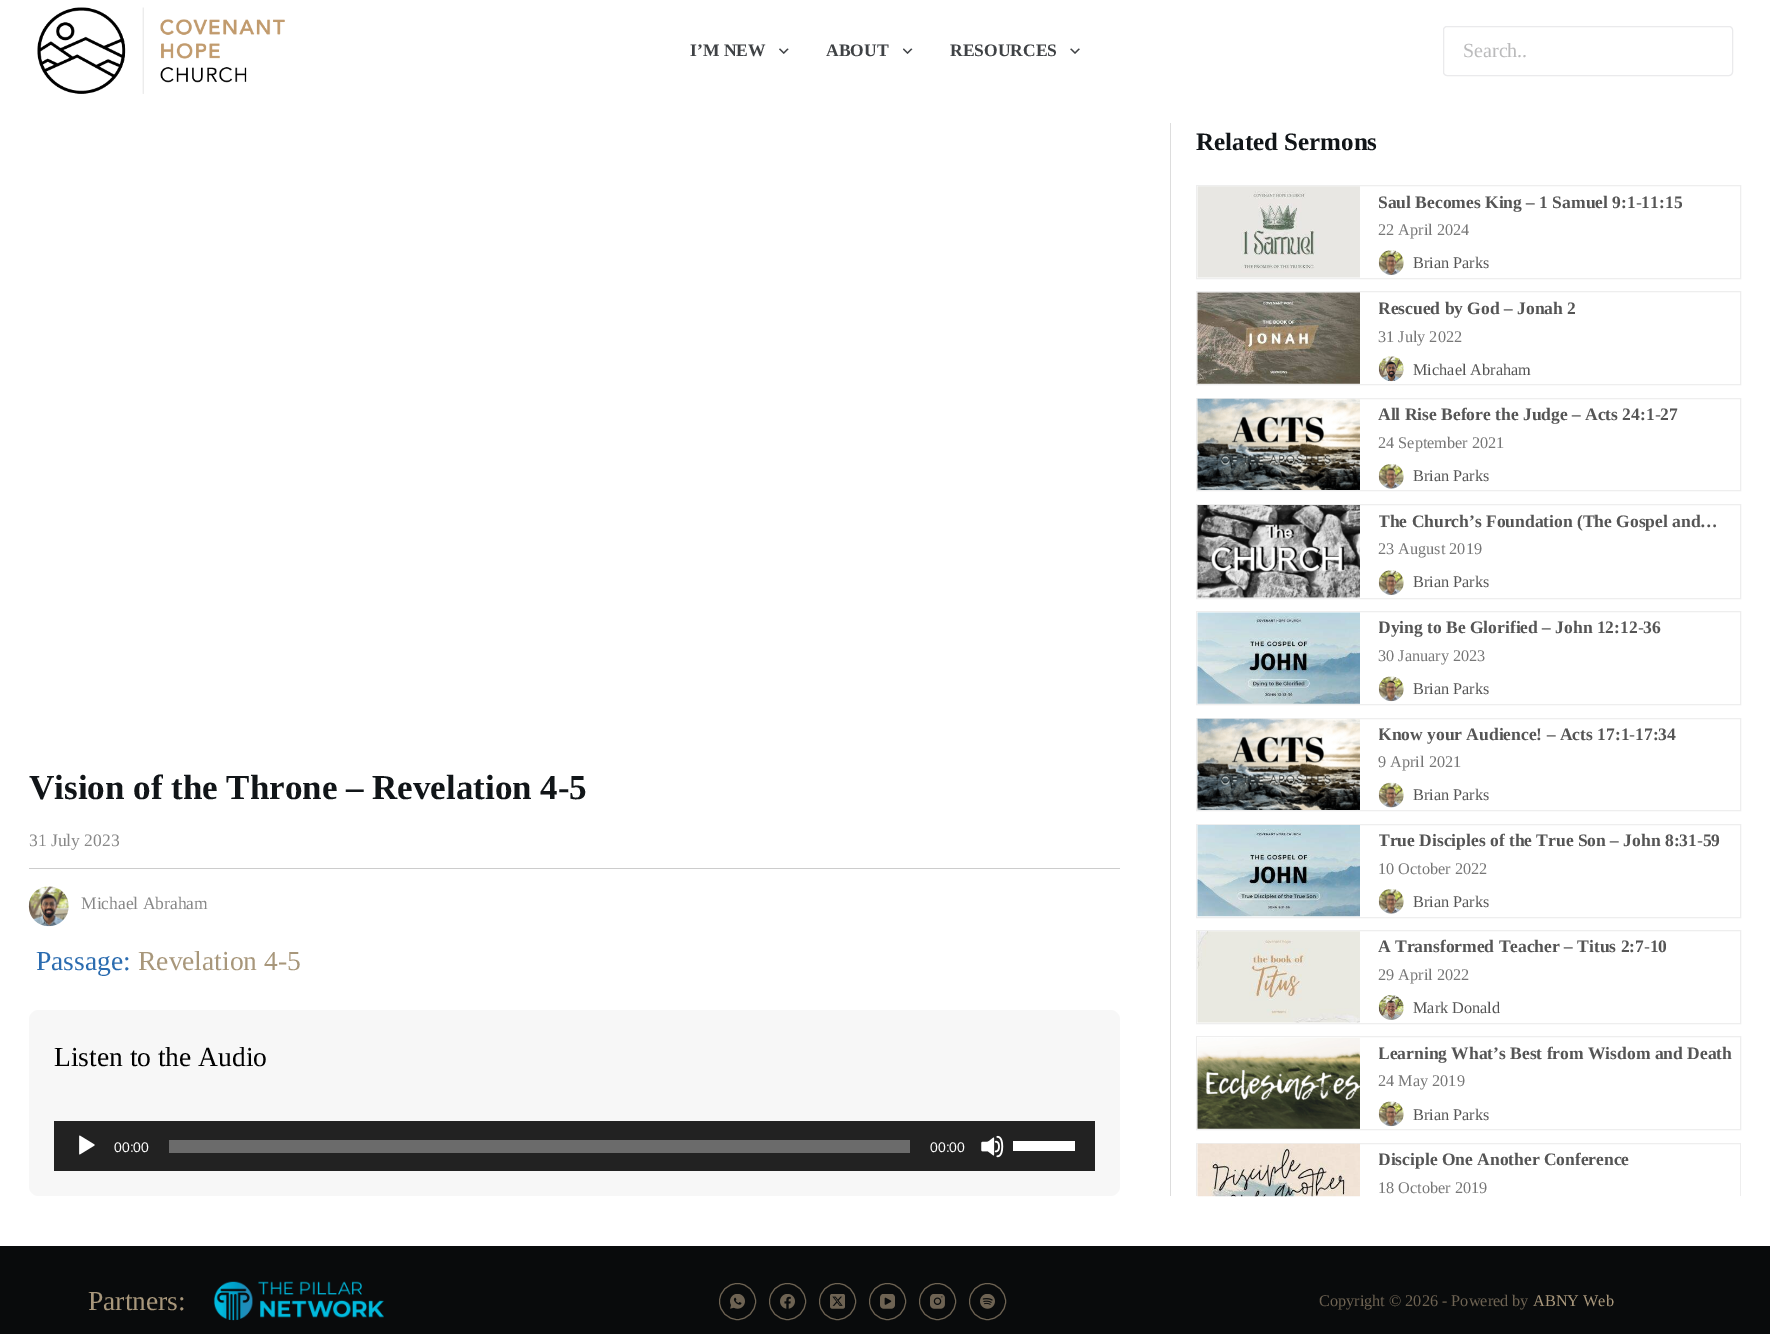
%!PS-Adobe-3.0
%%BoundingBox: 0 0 1770 1334
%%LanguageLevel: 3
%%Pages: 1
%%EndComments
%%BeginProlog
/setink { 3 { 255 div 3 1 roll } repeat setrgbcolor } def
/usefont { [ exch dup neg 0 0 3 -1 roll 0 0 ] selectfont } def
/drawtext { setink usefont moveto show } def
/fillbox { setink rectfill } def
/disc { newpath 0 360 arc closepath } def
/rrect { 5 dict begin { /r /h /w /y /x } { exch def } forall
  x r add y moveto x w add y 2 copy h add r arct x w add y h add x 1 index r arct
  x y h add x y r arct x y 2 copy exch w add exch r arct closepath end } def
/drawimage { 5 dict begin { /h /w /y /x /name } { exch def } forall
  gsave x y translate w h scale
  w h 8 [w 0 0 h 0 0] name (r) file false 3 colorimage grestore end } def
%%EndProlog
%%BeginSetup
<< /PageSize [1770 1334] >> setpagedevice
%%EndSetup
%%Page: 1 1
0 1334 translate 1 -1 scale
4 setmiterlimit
0 0 1770 1334 255 255 255 fillbox
(assets/img1.rgb) 37 7 248 87 drawimage
(I’M NEW) 690 56 /LiberationSerif-Bold 17.5 63 66 69 drawtext
(assets/img2.rgb) 779 48 10 6 drawimage
(ABOUT) 826 56 /LiberationSerif-Bold 17.5 63 66 69 drawtext
(assets/img3.rgb) 903 48 10 6 drawimage
(RESOURCES) 950 56 /LiberationSerif-Bold 17.5 63 66 69 drawtext
(assets/img4.rgb) 1070 48 10 6 drawimage
234 234 236 setink
1443.5 26.5 289 49 3.5 rrect stroke
(Search..) 1463 57 /LiberationSerif-Regular 20 187 187 188 drawtext
(Vision of the Throne – Revelation 4-5) 29 799 /LiberationSerif-Bold 35 17 21 24 drawtext
(31 July 2023) 29 846 /LiberationSerif-Regular 17.5 136 136 136 drawtext
29 868 1091 1 204 204 204 fillbox
(assets/img5.rgb) 28 886 41 41 drawimage
(Michael Abraham) 81 909 /LiberationSerif-Regular 17.5 136 136 136 drawtext
(Passage:) 36 970 /LiberationSerif-Regular 27.5 43 108 176 drawtext
(Revelation 4-5) 138 970 /LiberationSerif-Regular 27.5 168 151 123 drawtext
247 247 247 setink
29 1010 1091 186 10 rrect fill
(Listen to the Audio) 54 1066 /LiberationSerif-Regular 27.5 0 0 0 drawtext
54 1121 1041 50 34 34 34 fillbox
(assets/img6.rgb) 79 1135 16 20 drawimage
(00:00) 114 1152 /LiberationSans-Regular 14 255 255 255 drawtext
169 1140 741 13 107 107 107 fillbox
(00:00) 930 1152 /LiberationSans-Regular 14 255 255 255 drawtext
(assets/img7.rgb) 981 1135 23 23 drawimage
1013 1141 62 10 255 255 255 fillbox
1170 123 1 1073 221 221 221 fillbox
(Related Sermons) 1196 150 /LiberationSerif-Bold 25 17 21 24 drawtext
238 238 238 setink
1196.5 185.5 544 93 rectstroke
(assets/img8.rgb) 1197 186 163 92 drawimage
(Saul Becomes King – 1 Samuel 9:1-11:15) 1378 208 /LiberationSerif-Bold 17.5 85 85 85 drawtext
(22 April 2024) 1378 235 /LiberationSerif-Regular 16.25 119 119 119 drawtext
(assets/img9.rgb) 1378 250 26 25 drawimage
(Brian Parks) 1413 268 /LiberationSerif-Regular 16.25 85 85 85 drawtext
238 238 238 setink
1196.5 291.5 544 93 rectstroke
(assets/img10.rgb) 1197 292 163 92 drawimage
gsave
1379 294 361 29 rectclip
(Rescued by God – Jonah 2) 1378 314 /LiberationSerif-Bold 17.5 85 85 85 drawtext
grestore
(31 July 2022) 1378 342 /LiberationSerif-Regular 16.25 119 119 119 drawtext
(assets/img11.rgb) 1378 356 26 26 drawimage
(Michael Abraham) 1413 375 /LiberationSerif-Regular 16.25 85 85 85 drawtext
238 238 238 setink
1196.5 398.5 544 92 rectstroke
(assets/img12.rgb) 1197 398 163 92 drawimage
(All Rise Before the Judge – Acts 24:1-27) 1378 420 /LiberationSerif-Bold 17.5 85 85 85 drawtext
(24 September 2021) 1378 448 /LiberationSerif-Regular 16.25 119 119 119 drawtext
(assets/img13.rgb) 1378 464 26 25 drawimage
(Brian Parks) 1413 481 /LiberationSerif-Regular 16.25 85 85 85 drawtext
238 238 238 setink
1196.5 504.5 544 94 rectstroke
(assets/img14.rgb) 1197 505 163 93 drawimage
gsave
1379 506 361 30 rectclip
(The Church’s Foundation \(The Gospel and…) 1378 527 /LiberationSerif-Bold 17.5 85 85 85 drawtext
grestore
(23 August 2019) 1378 554 /LiberationSerif-Regular 16.25 119 119 119 drawtext
(assets/img9.rgb) 1378 570 26 25 drawimage
(Brian Parks) 1413 587 /LiberationSerif-Regular 16.25 85 85 85 drawtext
238 238 238 setink
1196.5 611.5 544 93 rectstroke
(assets/img15.rgb) 1197 612 163 92 drawimage
gsave
1379 614 361 29 rectclip
(Dying to Be Glorified – John 12:12-36) 1378 633 /LiberationSerif-Bold 17.5 85 85 85 drawtext
grestore
(30 January 2023) 1378 661 /LiberationSerif-Regular 16.25 119 119 119 drawtext
(assets/img16.rgb) 1378 676 26 26 drawimage
(Brian Parks) 1413 694 /LiberationSerif-Regular 16.25 85 85 85 drawtext
238 238 238 setink
1196.5 718.5 544 92 rectstroke
(assets/img12.rgb) 1197 718 163 92 drawimage
gsave
1379 720 361 29 rectclip
(Know your Audience! – Acts 17:1-17:34) 1378 740 /LiberationSerif-Bold 17.5 85 85 85 drawtext
grestore
(9 April 2021) 1378 767 /LiberationSerif-Regular 16.25 119 119 119 drawtext
(assets/img17.rgb) 1378 782 26 26 drawimage
(Brian Parks) 1413 800 /LiberationSerif-Regular 16.25 85 85 85 drawtext
238 238 238 setink
1196.5 824.5 544 93 rectstroke
(assets/img18.rgb) 1197 825 163 92 drawimage
gsave
1379 826 361 29 rectclip
(True Disciples of the True Son – John 8:31-59) 1378 846 /LiberationSerif-Bold 17.5 85 85 85 drawtext
grestore
(10 October 2022) 1378 874 /LiberationSerif-Regular 16.25 119 119 119 drawtext
(assets/img19.rgb) 1378 889 26 25 drawimage
(Brian Parks) 1413 907 /LiberationSerif-Regular 16.25 85 85 85 drawtext
238 238 238 setink
1196.5 930.5 544 93 rectstroke
(assets/img20.rgb) 1197 931 163 92 drawimage
(A Transformed Teacher – Titus 2:7-10) 1378 952 /LiberationSerif-Bold 17.5 85 85 85 drawtext
(29 April 2022) 1378 980 /LiberationSerif-Regular 16.25 119 119 119 drawtext
(assets/img21.rgb) 1378 995 26 25 drawimage
(Mark Donald) 1413 1013 /LiberationSerif-Regular 16.25 85 85 85 drawtext
238 238 238 setink
1196.5 1036.5 544 93 rectstroke
(assets/img22.rgb) 1197 1037 163 92 drawimage
gsave
1379 1039 361 29 rectclip
(Learning What’s Best from Wisdom and Death) 1378 1059 /LiberationSerif-Bold 17.5 85 85 85 drawtext
grestore
(24 May 2019) 1378 1086 /LiberationSerif-Regular 16.25 119 119 119 drawtext
(assets/img16.rgb) 1378 1101 26 26 drawimage
(Brian Parks) 1413 1120 /LiberationSerif-Regular 16.25 85 85 85 drawtext
gsave
1171 123 570 1073 rectclip
238 238 238 setink
1196.5 1143.5 544 92 rectstroke
grestore
(assets/img23.rgb) 1197 1143 163 54 drawimage
gsave
1379 1145 361 29 rectclip
(Disciple One Another Conference) 1378 1165 /LiberationSerif-Bold 17.5 85 85 85 drawtext
grestore
(18 October 2019) 1378 1193 /LiberationSerif-Regular 16.25 119 119 119 drawtext
0 1246 1770 88 9 11 12 fillbox
(Partners:) 88 1310 /LiberationSerif-Regular 27.5 168 151 123 drawtext
(assets/img24.rgb) 213 1281 171 40 drawimage
110 99 83 setink
737.5 1301.5 18 disc stroke
(assets/img25.rgb) 730 1294 15 15 drawimage
787.5 1301.5 18 disc stroke
(assets/img26.rgb) 780 1294 15 15 drawimage
837.5 1301.5 18 disc stroke
(assets/img27.rgb) 830 1294 15 15 drawimage
887.5 1301.5 18 disc stroke
(assets/img28.rgb) 880 1294 15 15 drawimage
937.5 1301.5 18 disc stroke
(assets/img29.rgb) 930 1294 15 15 drawimage
987.5 1301.5 18 disc stroke
(assets/img30.rgb) 980 1294 15 15 drawimage
(Copyright © 2026 - Powered by) 1319 1306 /LiberationSerif-Regular 16.25 110 99 83 drawtext
(ABNY Web) 1533 1306 /LiberationSerif-Regular 16.25 168 151 123 drawtext
showpage
%%EOF
